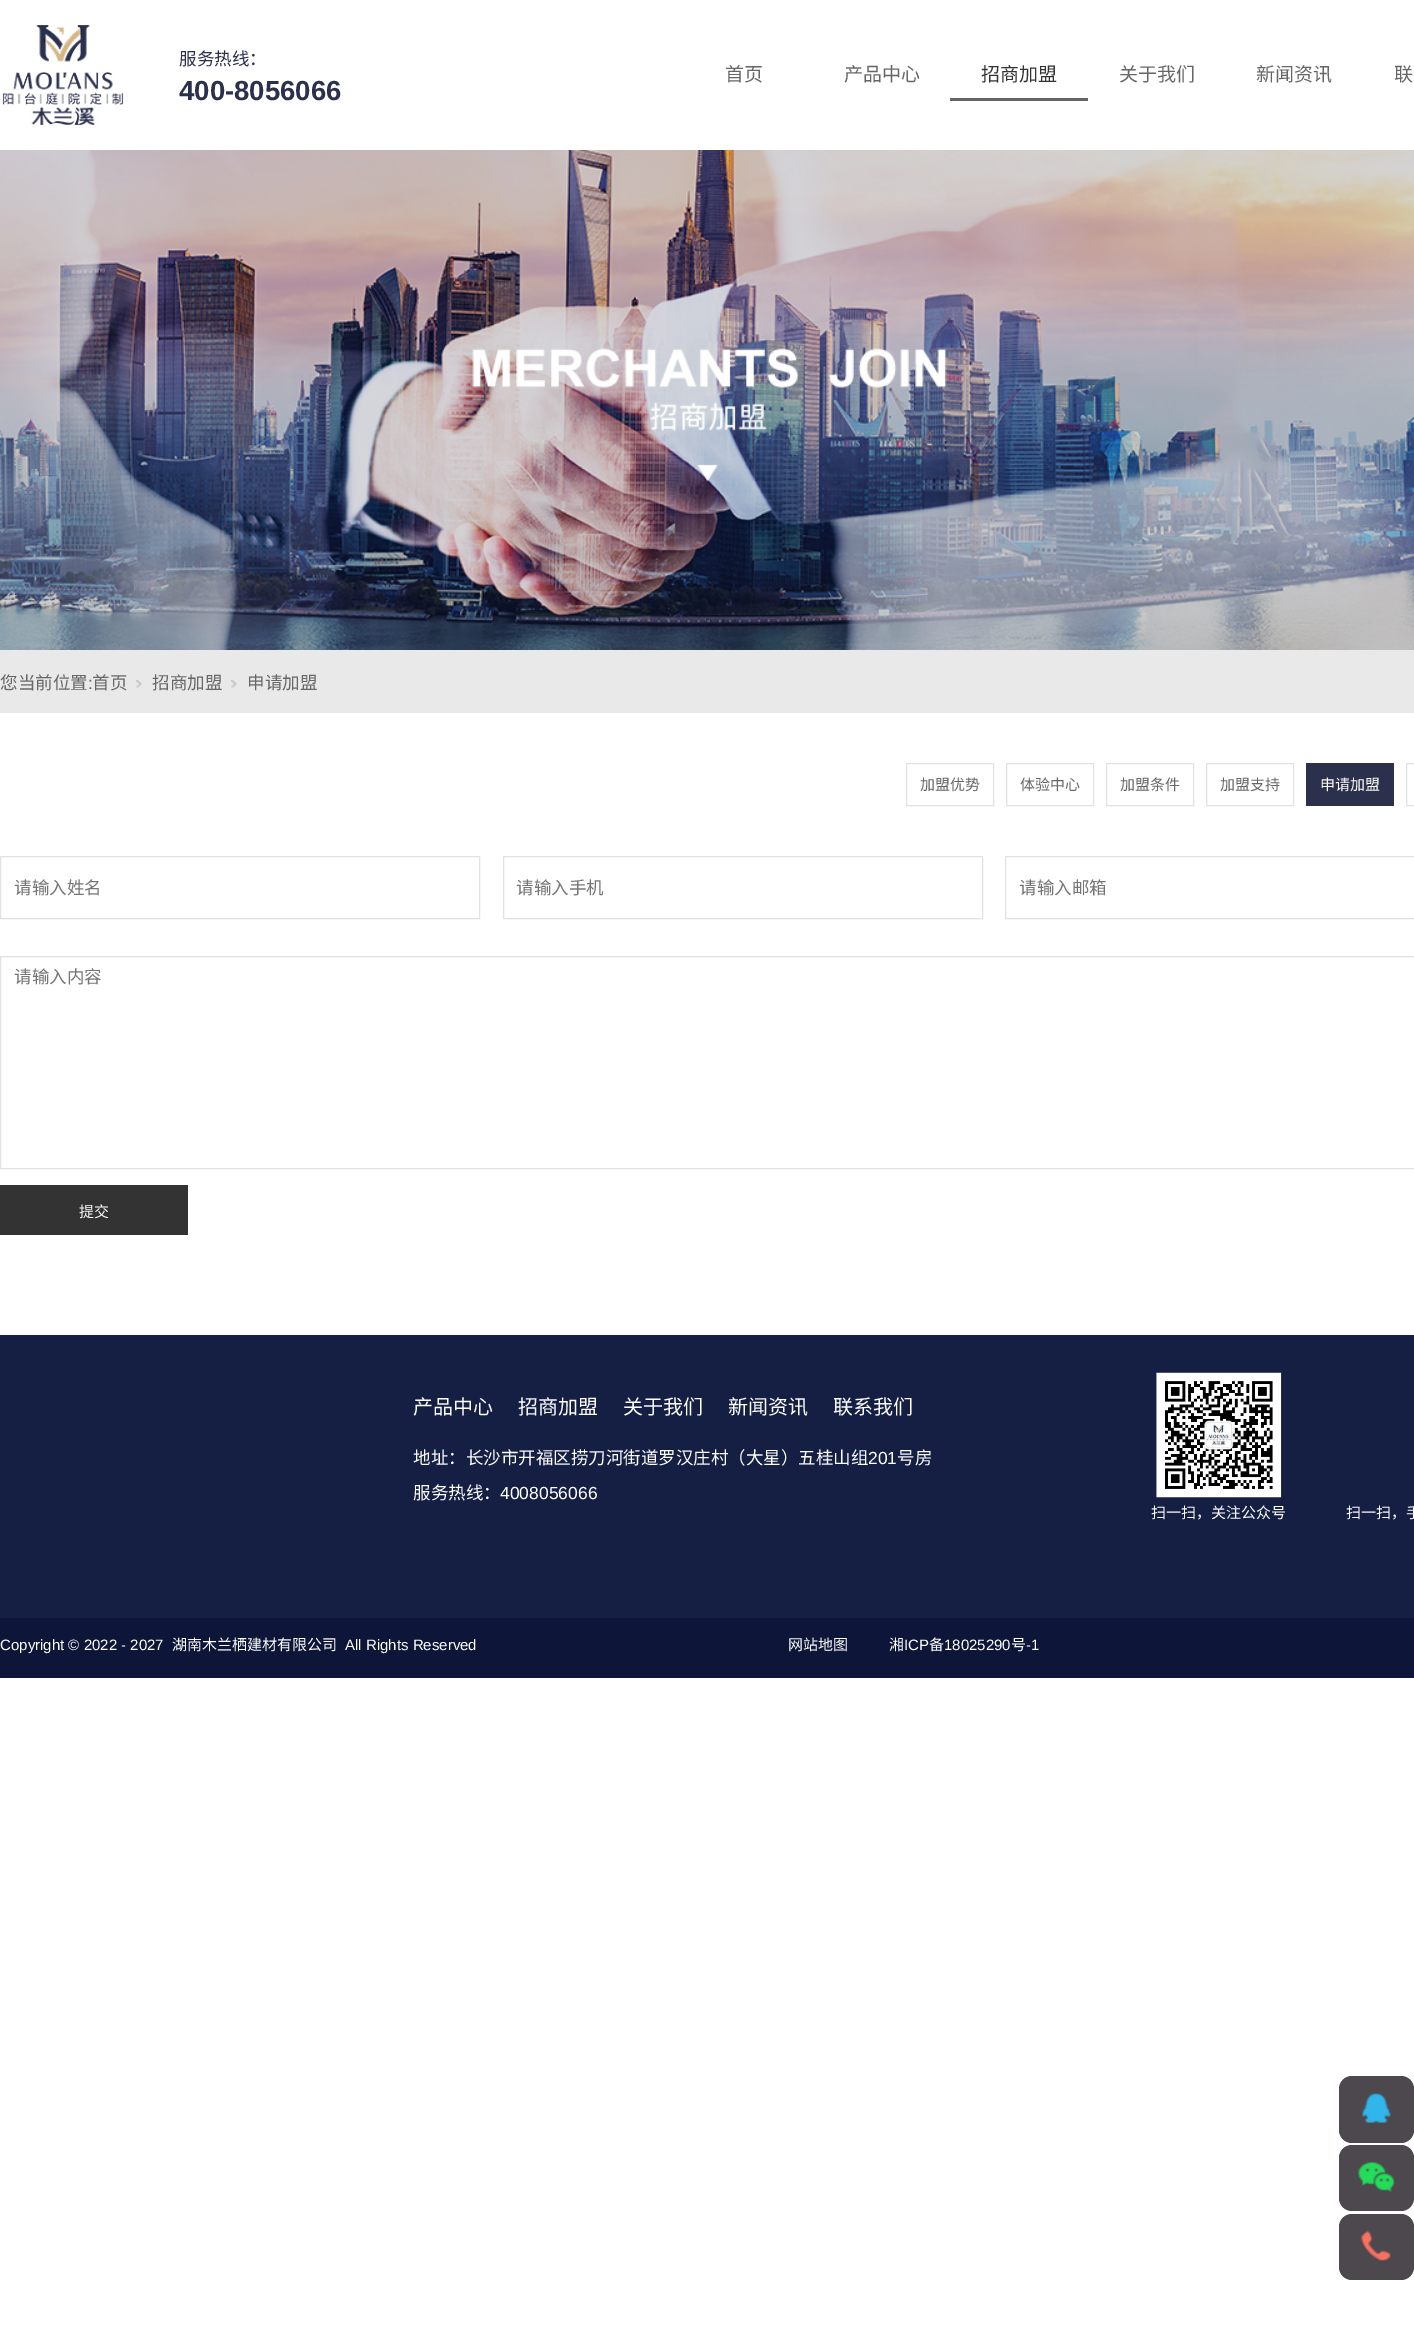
%!PS-Adobe-3.0
%%BoundingBox: 0 0 1414 2345
%%LanguageLevel: 3
%%Pages: 1
%%EndComments
%%BeginProlog
/setink { 3 { 255 div 3 1 roll } repeat setrgbcolor } def
/usefont { [ exch dup neg 0 0 3 -1 roll 0 0 ] selectfont } def
/drawtext { setink usefont moveto show } def
/fillbox { setink rectfill } def
/rrect { 5 dict begin { /r /h /w /y /x } { exch def } forall
  x r add y moveto x w add y 2 copy h add r arct x w add y h add x 1 index r arct
  x y h add x y r arct x y 2 copy exch w add exch r arct closepath end } def
/drawimage { 5 dict begin { /h /w /y /x /name } { exch def } forall
  gsave x y translate w h scale
  w h 8 [w 0 0 h 0 0] name (r) file false 3 colorimage grestore end } def
%%EndProlog
%%BeginSetup
<< /PageSize [1414 2345] >> setpagedevice
%%EndSetup
%%Page: 1 1
0 2345 translate 1 -1 scale
4 setmiterlimit
0 0 1414 2345 255 255 255 fillbox
(assets/img1.rgb) 2 25 122 103 drawimage
(服务热线：) 179 65 /NotoSansCJKSC-Regular 17.5 43 48 77 drawtext
(400-8056066) 179 100 /LiberationSans-Bold 27.5 43 48 77 drawtext
(首页) 725 81 /NotoSansCJKSC-Regular 19 102 102 102 drawtext
(产品中心) 844 81 /NotoSansCJKSC-Regular 19 102 102 102 drawtext
950 98 138 3 102 102 102 fillbox
(招商加盟) 981 81 /NotoSansCJKSC-Regular 19 51 51 51 drawtext
(关于我们) 1119 81 /NotoSansCJKSC-Regular 19 102 102 102 drawtext
(新闻资讯) 1256 81 /NotoSansCJKSC-Regular 19 102 102 102 drawtext
(联) 1394 81 /NotoSansCJKSC-Regular 19 102 102 102 drawtext
(assets/img2.rgb) 0 150 1414 500 drawimage
0 650 1414 63 233 233 233 fillbox
(您当前位置) 0 689 /NotoSansCJKSC-Regular 17.5 102 102 102 drawtext
(:) 88 689 /LiberationSans-Regular 17.5 102 102 102 drawtext
(首页) 92 689 /NotoSansCJKSC-Regular 17.5 102 102 102 drawtext
(assets/img3.rgb) 136 680 6 8 drawimage
(招商加盟) 152 689 /NotoSansCJKSC-Regular 17.5 102 102 102 drawtext
(assets/img3.rgb) 231 680 6 8 drawimage
(申请加盟) 247 689 /NotoSansCJKSC-Regular 17.5 102 102 102 drawtext
226 226 226 setink
906.5 763.5 87 42 rectstroke
(加盟优势) 920 790 /NotoSansCJKSC-Regular 15 102 102 102 drawtext
226 226 226 setink
1006.5 763.5 87 42 rectstroke
(体验中心) 1020 790 /NotoSansCJKSC-Regular 15 102 102 102 drawtext
226 226 226 setink
1106.5 763.5 87 42 rectstroke
(加盟条件) 1120 790 /NotoSansCJKSC-Regular 15 102 102 102 drawtext
226 226 226 setink
1206.5 763.5 87 42 rectstroke
(加盟支持) 1220 790 /NotoSansCJKSC-Regular 15 102 102 102 drawtext
1306 763 88 43 43 48 77 fillbox
(申请加盟) 1320 790 /NotoSansCJKSC-Regular 15 255 255 255 drawtext
226 226 226 setink
1406.5 763.5 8 42 rectstroke
0.5 856.5 479 62 rectstroke
(请输入姓名) 14 894 /NotoSansCJKSC-Regular 17.5 117 117 117 drawtext
226 226 226 setink
503.5 856.5 479 62 rectstroke
(请输入手机) 516 894 /NotoSansCJKSC-Regular 17.5 117 117 117 drawtext
226 226 226 setink
1005.5 856.5 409 62 rectstroke
(请输入邮箱) 1019 894 /NotoSansCJKSC-Regular 17.5 117 117 117 drawtext
226 226 226 setink
0.5 956.5 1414 212 rectstroke
(请输入内容) 14 983 /NotoSansCJKSC-Regular 17.5 117 117 117 drawtext
0 1185 188 50 51 51 51 fillbox
(提交) 79 1217 /NotoSansCJKSC-Regular 15 255 255 255 drawtext
0 1335 1414 283 21 31 67 fillbox
(产品中心) 413 1414 /NotoSansCJKSC-Regular 20 255 255 255 drawtext
(招商加盟) 518 1414 /NotoSansCJKSC-Regular 20 255 255 255 drawtext
(关于我们) 623 1414 /NotoSansCJKSC-Regular 20 255 255 255 drawtext
(新闻资讯) 728 1414 /NotoSansCJKSC-Regular 20 255 255 255 drawtext
(联系我们) 833 1414 /NotoSansCJKSC-Regular 20 255 255 255 drawtext
(地址：长沙市开福区捞刀河街道罗汉庄村（大星）五桂山组) 413 1464 /NotoSansCJKSC-Regular 17.5 255 255 255 drawtext
(201) 868 1464 /LiberationSans-Regular 17.5 255 255 255 drawtext
(号房) 897 1464 /NotoSansCJKSC-Regular 17.5 255 255 255 drawtext
(服务热线：) 413 1499 /NotoSansCJKSC-Regular 17.5 255 255 255 drawtext
(4008056066) 500 1499 /LiberationSans-Regular 17.5 255 255 255 drawtext
(assets/img4.rgb) 1156 1372 126 126 drawimage
(扫一扫，关注公众号) 1151 1518 /NotoSansCJKSC-Regular 15 255 255 255 drawtext
(扫一扫，手) 1346 1518 /NotoSansCJKSC-Regular 15 255 255 255 drawtext
0 1618 1414 60 13 22 56 fillbox
(Copyright © 2022 - 2027) 0 1650 /LiberationSans-Regular 15 255 255 255 drawtext
(湖南木兰栖建材有限公司) 172 1650 /NotoSansCJKSC-Regular 15 255 255 255 drawtext
(All Rights Reserved) 345 1650 /LiberationSans-Regular 15 255 255 255 drawtext
(网站地图) 788 1650 /NotoSansCJKSC-Regular 15 255 255 255 drawtext
(湘) 889 1650 /NotoSansCJKSC-Regular 15 255 255 255 drawtext
(ICP) 904 1650 /LiberationSans-Regular 15 255 255 255 drawtext
(备) 929 1650 /NotoSansCJKSC-Regular 15 255 255 255 drawtext
(18025290) 944 1650 /LiberationSans-Regular 15 255 255 255 drawtext
(号) 1011 1650 /NotoSansCJKSC-Regular 15 255 255 255 drawtext
(-1) 1026 1650 /LiberationSans-Regular 15 255 255 255 drawtext
76 72 77 setink
1339 2076 75 67 13 rrect fill
(assets/img5.rgb) 1362 2093 30 30 drawimage
1339 2145 75 66 13 rrect fill
(assets/img6.rgb) 1358 2161 37 31 drawimage
1339 2214 75 66 13 rrect fill
(assets/img7.rgb) 1360 2230 31 31 drawimage
showpage
%%EOF
